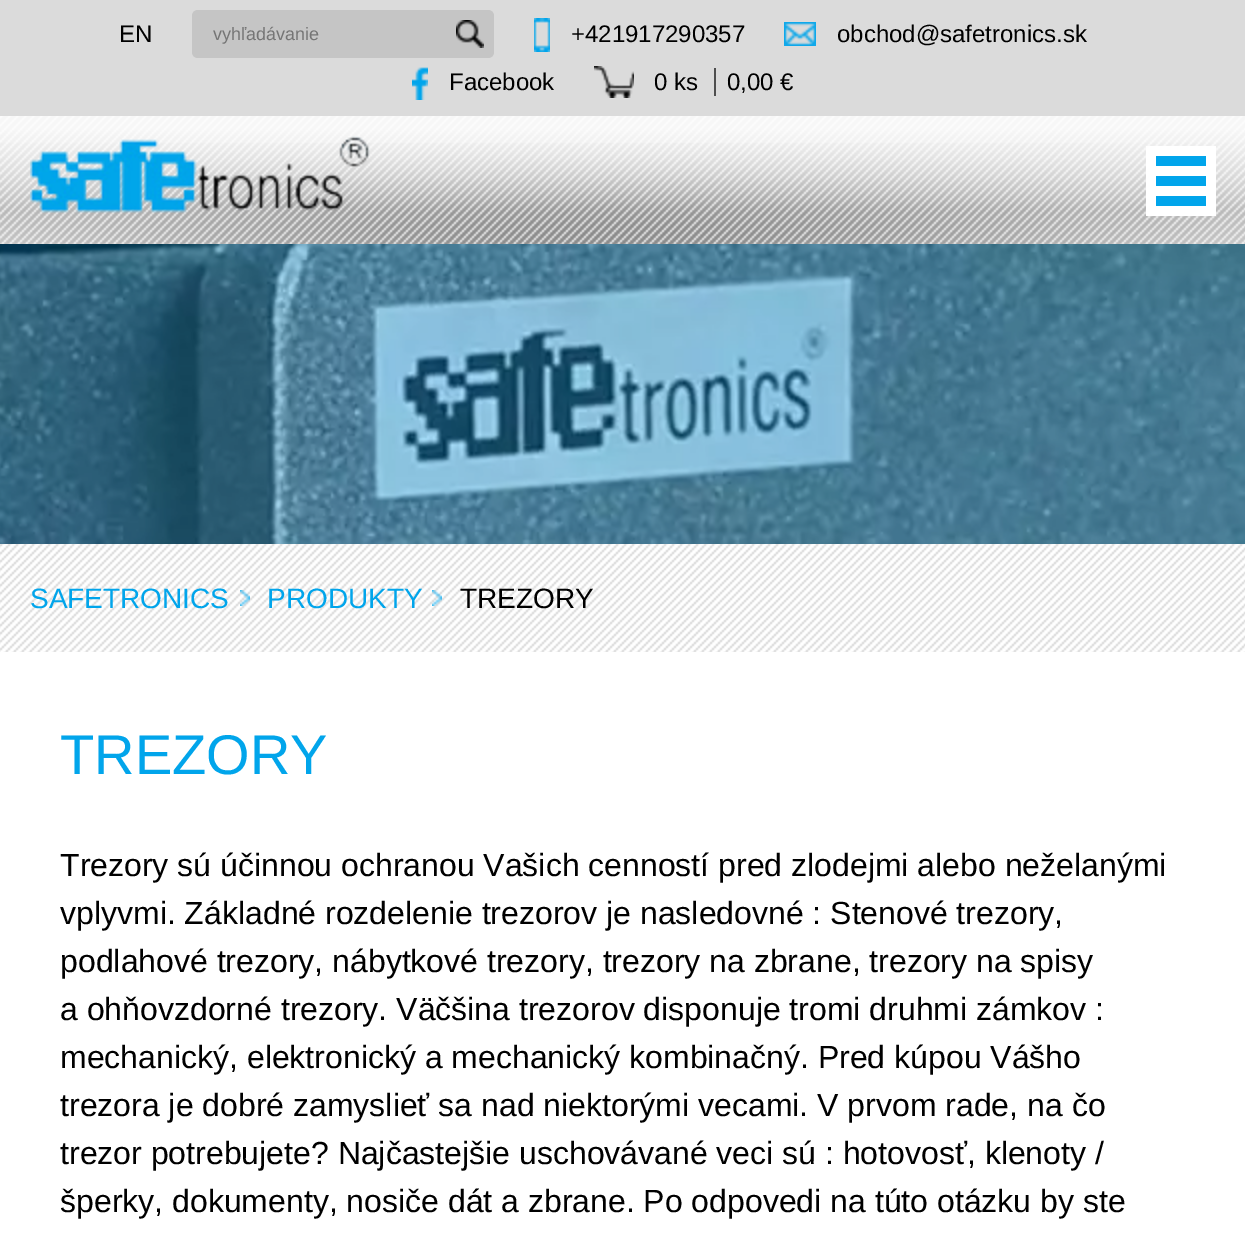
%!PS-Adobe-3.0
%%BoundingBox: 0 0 1245 1250
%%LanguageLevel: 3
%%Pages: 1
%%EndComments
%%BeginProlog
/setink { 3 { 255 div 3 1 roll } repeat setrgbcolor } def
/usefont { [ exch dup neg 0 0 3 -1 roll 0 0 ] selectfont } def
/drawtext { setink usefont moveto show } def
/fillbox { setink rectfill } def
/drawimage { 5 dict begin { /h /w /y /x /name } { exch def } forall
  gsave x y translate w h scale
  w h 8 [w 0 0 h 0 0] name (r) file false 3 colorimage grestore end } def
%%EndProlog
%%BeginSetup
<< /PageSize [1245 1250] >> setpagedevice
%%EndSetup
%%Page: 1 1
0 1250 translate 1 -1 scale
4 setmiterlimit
0 0 1245 1250 255 255 255 fillbox
0 0 1245 116 219 219 219 fillbox
(EN) 119 42 /LiberationSans-Regular 24 0 0 0 drawtext
197 197 197 setink
198 10 moveto 446 10 lineto 446 58 lineto 198 58 lineto 194.5 58 192 55.5 192 52 curveto 192 16 lineto 192 12.5 194.5 10 198 10 curveto closepath fill
(vyhľadávanie) 213 40 /LiberationSans-Regular 18 117 117 117 drawtext
197 197 197 setink
446 10 moveto 488 10 lineto 491.5 10 494 12.5 494 16 curveto 494 52 lineto 494 55.5 491.5 58 488 58 curveto 446 58 lineto closepath fill
(assets/img1.rgb) 456 20 28 28 drawimage
(assets/img2.rgb) 534 18 16 34 drawimage
(+421917290357) 571 42 /LiberationSans-Regular 24 0 0 0 drawtext
(assets/img3.rgb) 784 22 32 24 drawimage
(obchod@safetronics.sk) 837 42 /LiberationSans-Regular 24 0 0 0 drawtext
(assets/img4.rgb) 412 67 16 33 drawimage
(Facebook) 449 90 /LiberationSans-Regular 24 0 0 0 drawtext
(assets/img5.rgb) 594 66 40 32 drawimage
(0 ks) 654 90 /LiberationSans-Regular 24 0 0 0 drawtext
714 68 2 28 78 78 78 fillbox
(0,00 €) 727 90 /LiberationSans-Regular 24 0 0 0 drawtext
gsave 0 116 moveto 1245 116 lineto 1245 244 lineto 0 244 lineto closepath clip newpath
<< /ShadingType 2 /ColorSpace /DeviceRGB /Coords [623 116 623 244] /Extend [true true] /Function << /FunctionType 3 /Domain [0 1] /Functions [<< /FunctionType 2 /Domain [0 1] /C0 [0.969 0.969 0.969] /C1 [0.969 0.969 0.969] /N 1 >> << /FunctionType 2 /Domain [0 1] /C0 [0.969 0.969 0.969] /C1 [0.82 0.82 0.82] /N 1 >> << /FunctionType 2 /Domain [0 1] /C0 [0.82 0.82 0.82] /C1 [0.922 0.922 0.922] /N 1 >>] /Bounds [0.09 0.74] /Encode [0 1 0 1 0 1] >> >> shfill grestore
(assets/img6.rgb) 0 147 1245 97 drawimage
(assets/img7.rgb) 0 116 1245 128 drawimage
(assets/img8.rgb) 30 136 340 77 drawimage
1146 146 70 70 255 255 255 fillbox
1156 156 50 10 1 165 235 fillbox
1156 176 50 10 1 165 235 fillbox
1156 196 50 10 1 165 235 fillbox
(assets/img9.rgb) 0 244 1245 300 drawimage
(assets/img10.rgb) 0 544 1245 108 drawimage
(SAFETRONICS) 30 608 /LiberationSans-Regular 28 1 165 235 drawtext
(assets/img11.rgb) 240 590 10 16 drawimage
(PRODUKTY) 267 608 /LiberationSans-Regular 28 1 165 235 drawtext
(assets/img11.rgb) 432 590 10 16 drawimage
(TREZORY) 460 608 /LiberationSans-Regular 28 0 0 0 drawtext
(TREZORY) 60 774 /LiberationSans-Regular 56 1 165 235 drawtext
(Trezory sú účinnou ochranou Vašich cenností pred zlodejmi alebo neželanými) 60 876 /LiberationSans-Regular 32 0 0 0 drawtext
(vplyvmi. Základné rozdelenie trezorov je nasledovné : Stenové trezory,) 60 924 /LiberationSans-Regular 32 0 0 0 drawtext
(podlahové trezory, nábytkové trezory, trezory na zbrane, trezory na spisy) 60 972 /LiberationSans-Regular 32 0 0 0 drawtext
(a ohňovzdorné trezory. Väčšina trezorov disponuje tromi druhmi zámkov :) 60 1020 /LiberationSans-Regular 32 0 0 0 drawtext
(mechanický, elektronický a mechanický kombinačný. Pred kúpou Vášho) 60 1068 /LiberationSans-Regular 32 0 0 0 drawtext
(trezora je dobré zamyslieť sa nad niektorými vecami. V prvom rade, na čo) 60 1116 /LiberationSans-Regular 32 0 0 0 drawtext
(trezor potrebujete? Najčastejšie uschovávané veci sú : hotovosť, klenoty /) 60 1164 /LiberationSans-Regular 32 0 0 0 drawtext
(šperky, dokumenty, nosiče dát a zbrane. Po odpovedi na túto otázku by ste) 60 1212 /LiberationSans-Regular 32 0 0 0 drawtext
showpage
%%EOF
